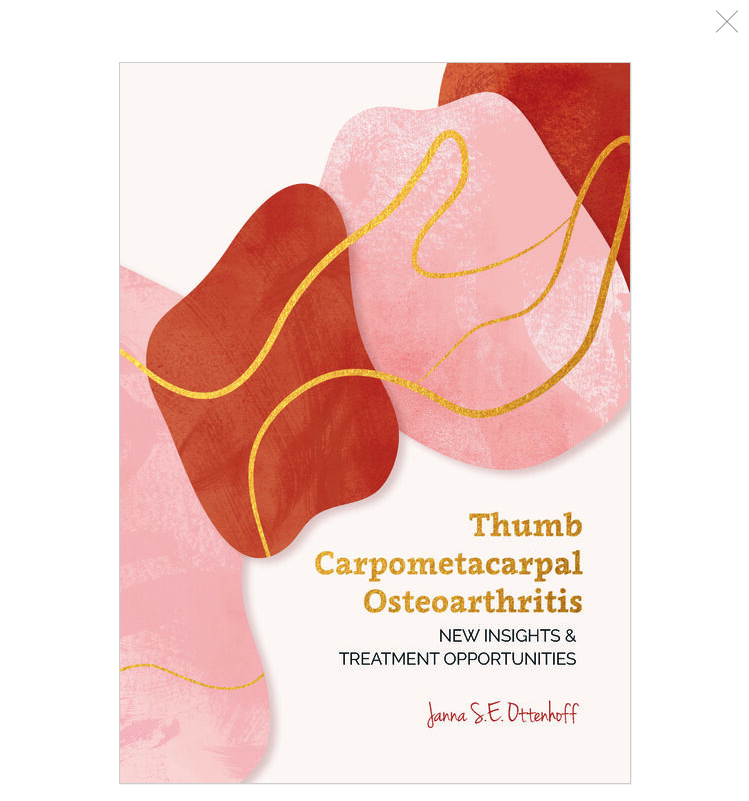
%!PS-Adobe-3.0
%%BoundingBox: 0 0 749 801
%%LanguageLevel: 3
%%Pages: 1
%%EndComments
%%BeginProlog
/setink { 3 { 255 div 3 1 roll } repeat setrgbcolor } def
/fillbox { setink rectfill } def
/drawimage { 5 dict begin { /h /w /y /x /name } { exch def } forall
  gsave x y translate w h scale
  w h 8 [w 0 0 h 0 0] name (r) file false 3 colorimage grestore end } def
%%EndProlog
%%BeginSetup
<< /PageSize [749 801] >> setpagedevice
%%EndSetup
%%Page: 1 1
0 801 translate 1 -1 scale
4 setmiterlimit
0 0 749 801 255 255 255 fillbox
136 136 136 setink
716.5 10.5 moveto 738 32 lineto 737.5 32.5 lineto 716 11 lineto closepath fill
716 32 moveto 737.5 10.5 lineto 738 11 lineto 716.5 32.5 lineto closepath fill
204 204 204 setink
119.5 62.5 511 721 rectstroke
(assets/img1.rgb) 120 63 510 720 drawimage
showpage
%%EOF
